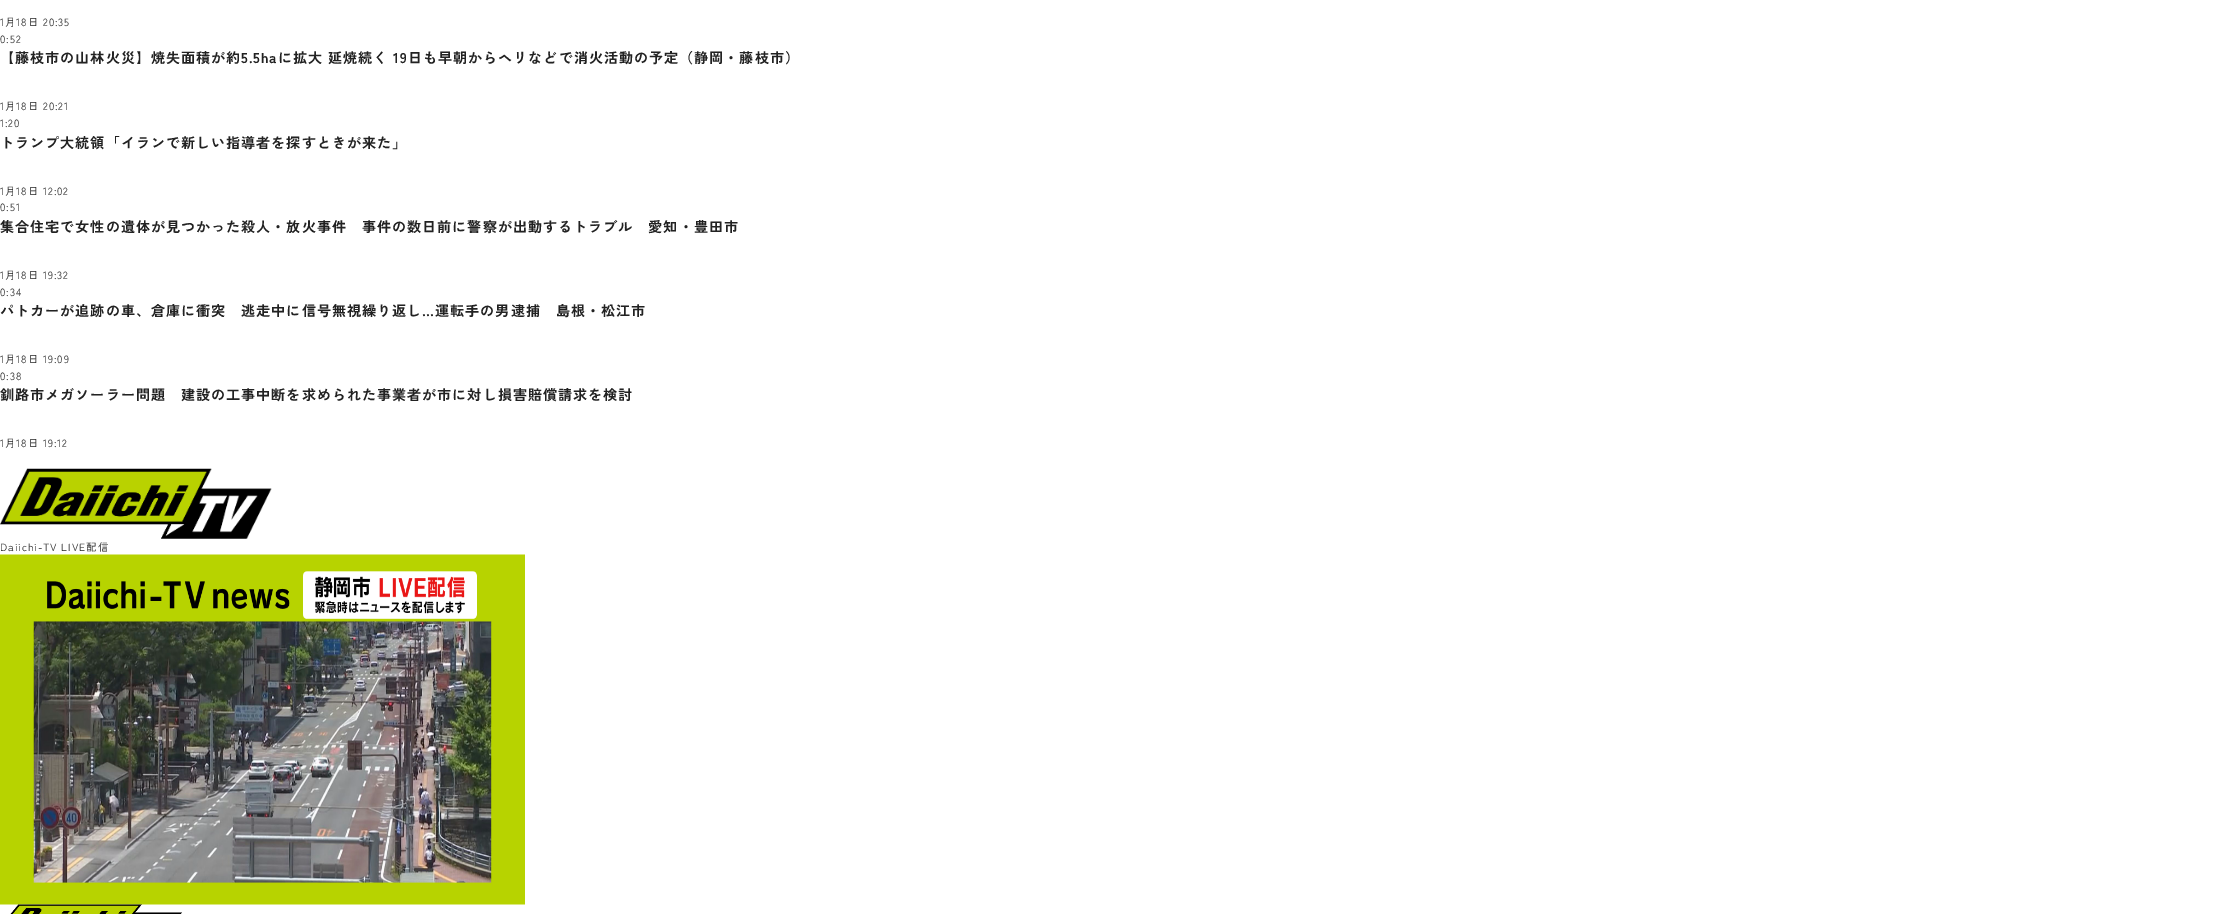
%!PS-Adobe-3.0
%%BoundingBox: 0 0 2235 914
%%LanguageLevel: 3
%%Pages: 1
%%EndComments
%%BeginProlog
/setink { 3 { 255 div 3 1 roll } repeat setrgbcolor } def
/usefont { [ exch dup neg 0 0 3 -1 roll 0 0 ] selectfont } def
/fillbox { setink rectfill } def
/drawimage { 5 dict begin { /h /w /y /x /name } { exch def } forall
  gsave x y translate w h scale
  w h 8 [w 0 0 h 0 0] name (r) file false 3 colorimage grestore end } def
%%EndProlog
%%BeginSetup
<< /PageSize [2235 914] >> setpagedevice
%%EndSetup
%%Page: 1 1
0 914 translate 1 -1 scale
4 setmiterlimit
0 0 2235 914 255 255 255 fillbox
/ZenKakuGothicNew-Regular 10.5 usefont
34 34 34 setink
0 26 moveto 0.95 0 (1月18日 20:35) ashow
0 43 moveto 0.95 0 (0:52) ashow
/ZenKakuGothicNew-Bold 14.13 usefont
0 63 moveto 0.95 0 (【藤枝市の山林火災】焼失面積が約5.5haに拡大 延焼続く 19日も早朝からヘリなどで消火活動の予定（静岡・藤枝市）) ashow
/ZenKakuGothicNew-Regular 10.5 usefont
0 110 moveto 0.95 0 (1月18日 20:21) ashow
0 127 moveto 0.95 0 (1:20) ashow
/ZenKakuGothicNew-Bold 14.13 usefont
0 148 moveto 0.95 0 (トランプ大統領「イランで新しい指導者を探すときが来た」) ashow
/ZenKakuGothicNew-Regular 10.5 usefont
0 195 moveto 0.95 0 (1月18日 12:02) ashow
0 211 moveto 0.95 0 (0:51) ashow
/ZenKakuGothicNew-Bold 14.13 usefont
0 232 moveto 0.95 0 (集合住宅で女性の遺体が見つかった殺人・放火事件　事件の数日前に警察が出動するトラブル　愛知・豊田市) ashow
/ZenKakuGothicNew-Regular 10.5 usefont
0 279 moveto 0.95 0 (1月18日 19:32) ashow
0 296 moveto 0.95 0 (0:34) ashow
/ZenKakuGothicNew-Bold 14.13 usefont
0 316 moveto 0.95 0 (パトカーが追跡の車、倉庫に衝突　逃走中に信号無視繰り返し…運転手の男逮捕　島根・松江市) ashow
/ZenKakuGothicNew-Regular 10.5 usefont
0 363 moveto 0.95 0 (1月18日 19:09) ashow
0 380 moveto 0.95 0 (0:38) ashow
/ZenKakuGothicNew-Bold 14.13 usefont
0 400 moveto 0.95 0 (釧路市メガソーラー問題　建設の工事中断を求められた事業者が市に対し損害賠償請求を検討) ashow
/ZenKakuGothicNew-Regular 10.5 usefont
0 447 moveto 0.95 0 (1月18日 19:12) ashow
(assets/img1.rgb) 0 468 272 71 drawimage
0 551 moveto 0.95 0 (Daiichi-TV LIVE配信) ashow
(assets/img2.rgb) 0 554 525 351 drawimage
(assets/img3.rgb) 10 904 172 10 drawimage
showpage
%%EOF
